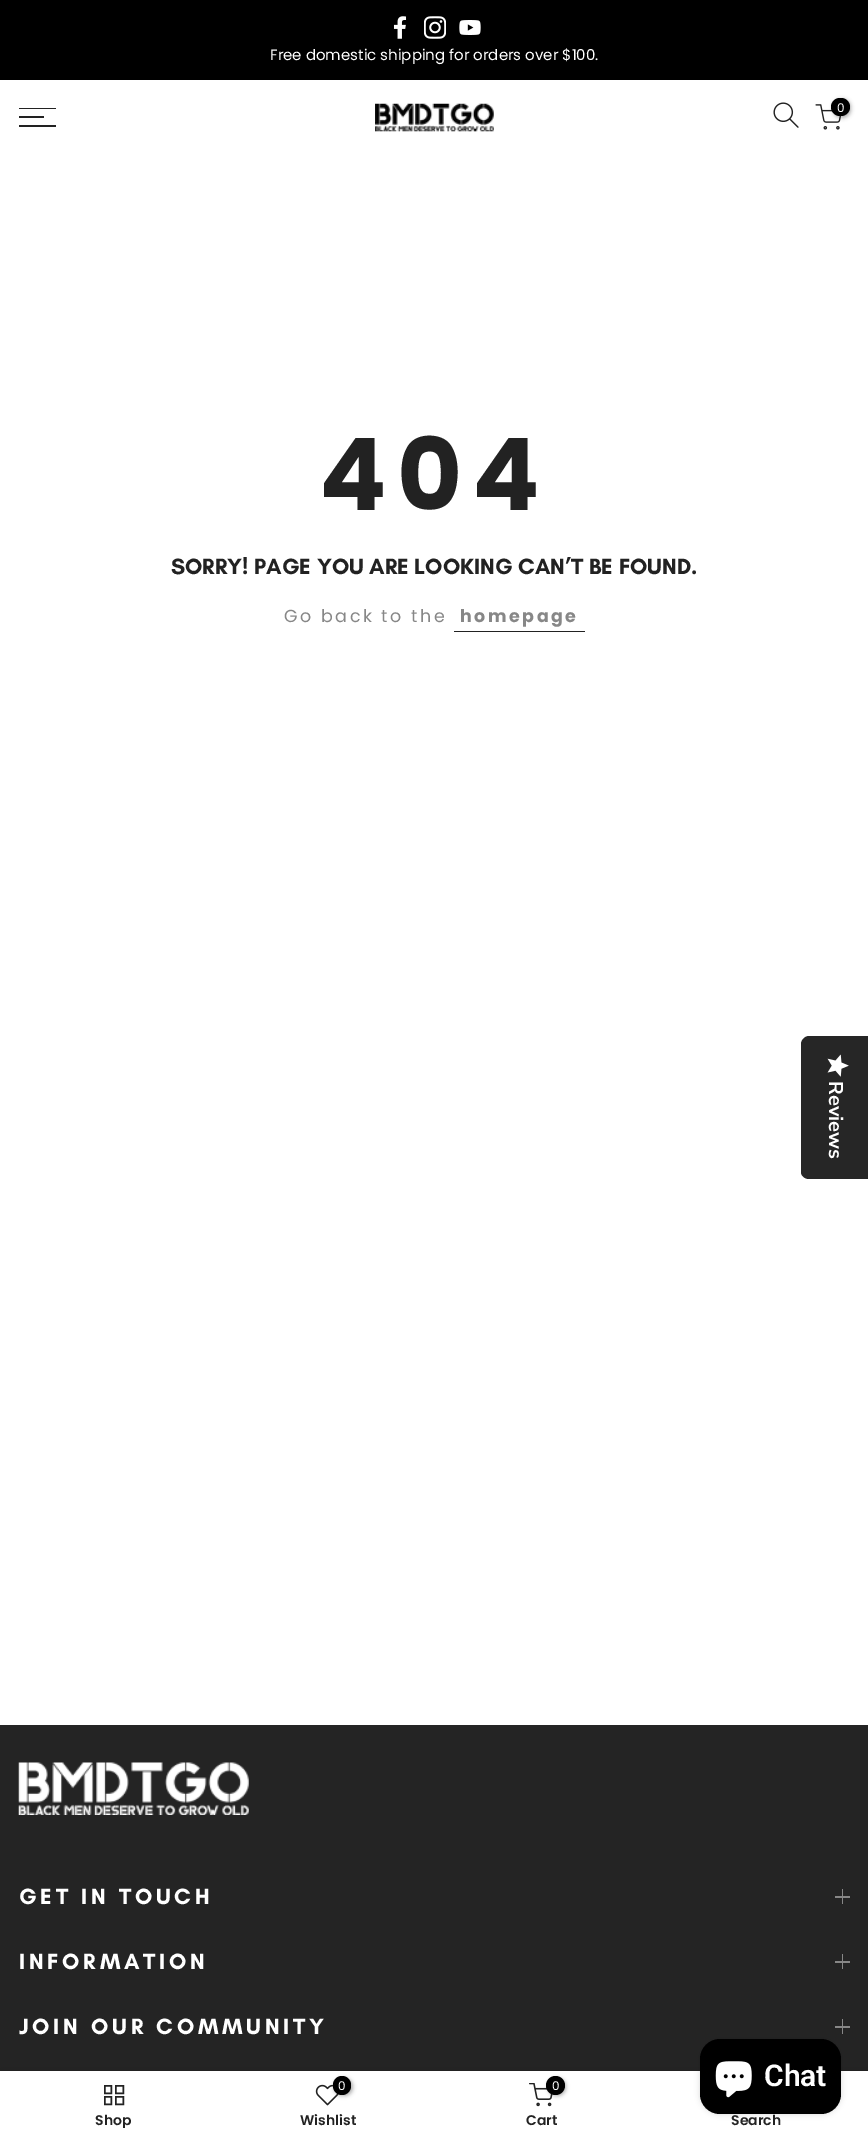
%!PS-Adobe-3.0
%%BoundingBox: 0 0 868 2140
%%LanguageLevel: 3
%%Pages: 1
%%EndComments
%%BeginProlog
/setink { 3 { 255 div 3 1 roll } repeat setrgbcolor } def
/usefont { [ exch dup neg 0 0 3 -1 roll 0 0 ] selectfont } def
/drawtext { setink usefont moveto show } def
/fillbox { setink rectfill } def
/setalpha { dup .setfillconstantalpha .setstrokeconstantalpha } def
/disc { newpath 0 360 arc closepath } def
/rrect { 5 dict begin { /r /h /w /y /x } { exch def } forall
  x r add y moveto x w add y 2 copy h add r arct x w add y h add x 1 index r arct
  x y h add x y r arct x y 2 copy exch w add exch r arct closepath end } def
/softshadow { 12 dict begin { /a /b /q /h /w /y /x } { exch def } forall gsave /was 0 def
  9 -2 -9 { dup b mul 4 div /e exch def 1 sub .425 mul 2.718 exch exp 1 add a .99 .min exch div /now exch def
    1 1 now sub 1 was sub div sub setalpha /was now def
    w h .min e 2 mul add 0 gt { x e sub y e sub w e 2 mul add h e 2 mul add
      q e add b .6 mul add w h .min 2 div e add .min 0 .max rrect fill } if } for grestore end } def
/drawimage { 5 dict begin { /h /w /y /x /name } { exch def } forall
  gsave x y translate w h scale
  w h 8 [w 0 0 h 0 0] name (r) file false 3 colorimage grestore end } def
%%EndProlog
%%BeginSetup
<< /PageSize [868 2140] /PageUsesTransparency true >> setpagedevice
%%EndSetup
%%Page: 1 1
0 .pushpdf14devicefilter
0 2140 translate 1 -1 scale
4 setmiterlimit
0 0 868 2140 255 255 255 fillbox
0 0 868 80 0 0 0 fillbox
(assets/img1.rgb) 393 16 14 23 drawimage
(assets/img2.rgb) 424 16 22 23 drawimage
(assets/img3.rgb) 459 20 22 15 drawimage
(Free domestic shipping for orders over $100.) 270 60 /Poppins-Regular 15 255 255 255 drawtext
19 108 37 1 34 34 34 fillbox
19 116 25 2 34 34 34 fillbox
19 125 37 2 34 34 34 fillbox
(assets/img4.rgb) 375 103 119 29 drawimage
(assets/img5.rgb) 773 102 26 26 drawimage
(assets/img6.rgb) 815 104 27 26 drawimage
0 0 0 setink
833 99 18 19 9 2 0.3 softshadow
831 98 19 18 9 rrect fill
(0) 837 112 /Poppins-Regular 12 255 255 255 drawtext
/Poppins-Bold 100 usefont
34 34 34 setink
319 510 moveto 10 0 (404) ashow
(SORRY! PAGE YOU ARE LOOKING CAN’T BE FOUND.) 171 574 /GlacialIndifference-Bold 22.5 34 34 34 drawtext
/Poppins-Regular 17.5 usefont
135 135 135 setink
284 622 moveto 2.5 0 (Go back to the) ashow
/Poppins-Bold 17.5 usefont
460 622 moveto 2.5 0 (homepage) ashow
454 631 131 1 34 34 34 fillbox
0 1725 868 346 36 36 36 fillbox
(assets/img7.rgb) 18 1762 231 53 drawimage
/GlacialIndifference-Bold 22.5 usefont
255 255 255 setink
19 1904 moveto 3.75 0 (GET IN TOUCH) ashow
842 1889 1 15 135 135 135 fillbox
835 1896 15 2 135 135 135 fillbox
255 255 255 setink
19 1969 moveto 3.75 0 (INFORMATION) ashow
842 1954 1 15 135 135 135 fillbox
835 1961 15 2 135 135 135 fillbox
255 255 255 setink
19 2034 moveto 3.75 0 (JOIN OUR COMMUNITY) ashow
842 2019 1 15 135 135 135 fillbox
835 2026 15 2 135 135 135 fillbox
38 38 38 setink
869 1036 moveto 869 1179 lineto 809 1179 lineto 805 1179 801 1176 801 1172 curveto 801 1044 lineto 801 1040 805 1036 809 1036 curveto closepath fill
(assets/img8.rgb) 827 1054 22 23 drawimage
/NunitoSans-ExtraLight 20 usefont
255 255 255 setink
gsave 829 1081 translate 90 rotate 0 0 moveto (Reviews) show grestore
0 0 0 setink
0 2071 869 69 0 5.5 0.12 softshadow
0 2071 868 69 255 255 255 fillbox
0 0 0 setink
700 2039 141 75 20 3 0.15 softshadow
700 2039 141 75 20 rrect fill
(assets/img9.rgb) 715 2061 37 37 drawimage
(Chat) 764 2086 /Roboto-SemiBold 30 255 255 255 drawtext
34 34 34 setink
1.5 setlinewidth
104.75 2085.75 6.5 7.5 rectstroke
115.75 2085.75 7.5 7.5 rectstroke
104.75 2096.75 6.5 7.5 rectstroke
115.75 2096.75 7.5 7.5 rectstroke
gsave
19 2114 189 14 rectclip
(Shop) 95 2125 /Poppins-SemiBold 14 34 34 34 drawtext
grestore
(assets/img10.rgb) 315 2084 24 22 drawimage
0 0 0 setink
334 2078 19 18 9 2 0.3 softshadow
333 2076 18 19 9 rrect fill
(0) 338 2090 /Poppins-Regular 12 255 255 255 drawtext
(Wishlist) 300 2125 /Poppins-SemiBold 14 34 34 34 drawtext
(assets/img11.rgb) 529 2083 24 24 drawimage
0 0 0 setink
548 2078 18 18 9 2 0.3 softshadow
555.5 2085.5 9.5 disc fill
(0) 552 2090 /Poppins-Regular 12 255 255 255 drawtext
(Cart) 526 2125 /Poppins-SemiBold 14 34 34 34 drawtext
(Search) 731 2125 /Poppins-SemiBold 14 34 34 34 drawtext
.poppdf14devicefilter showpage
%%EOF
